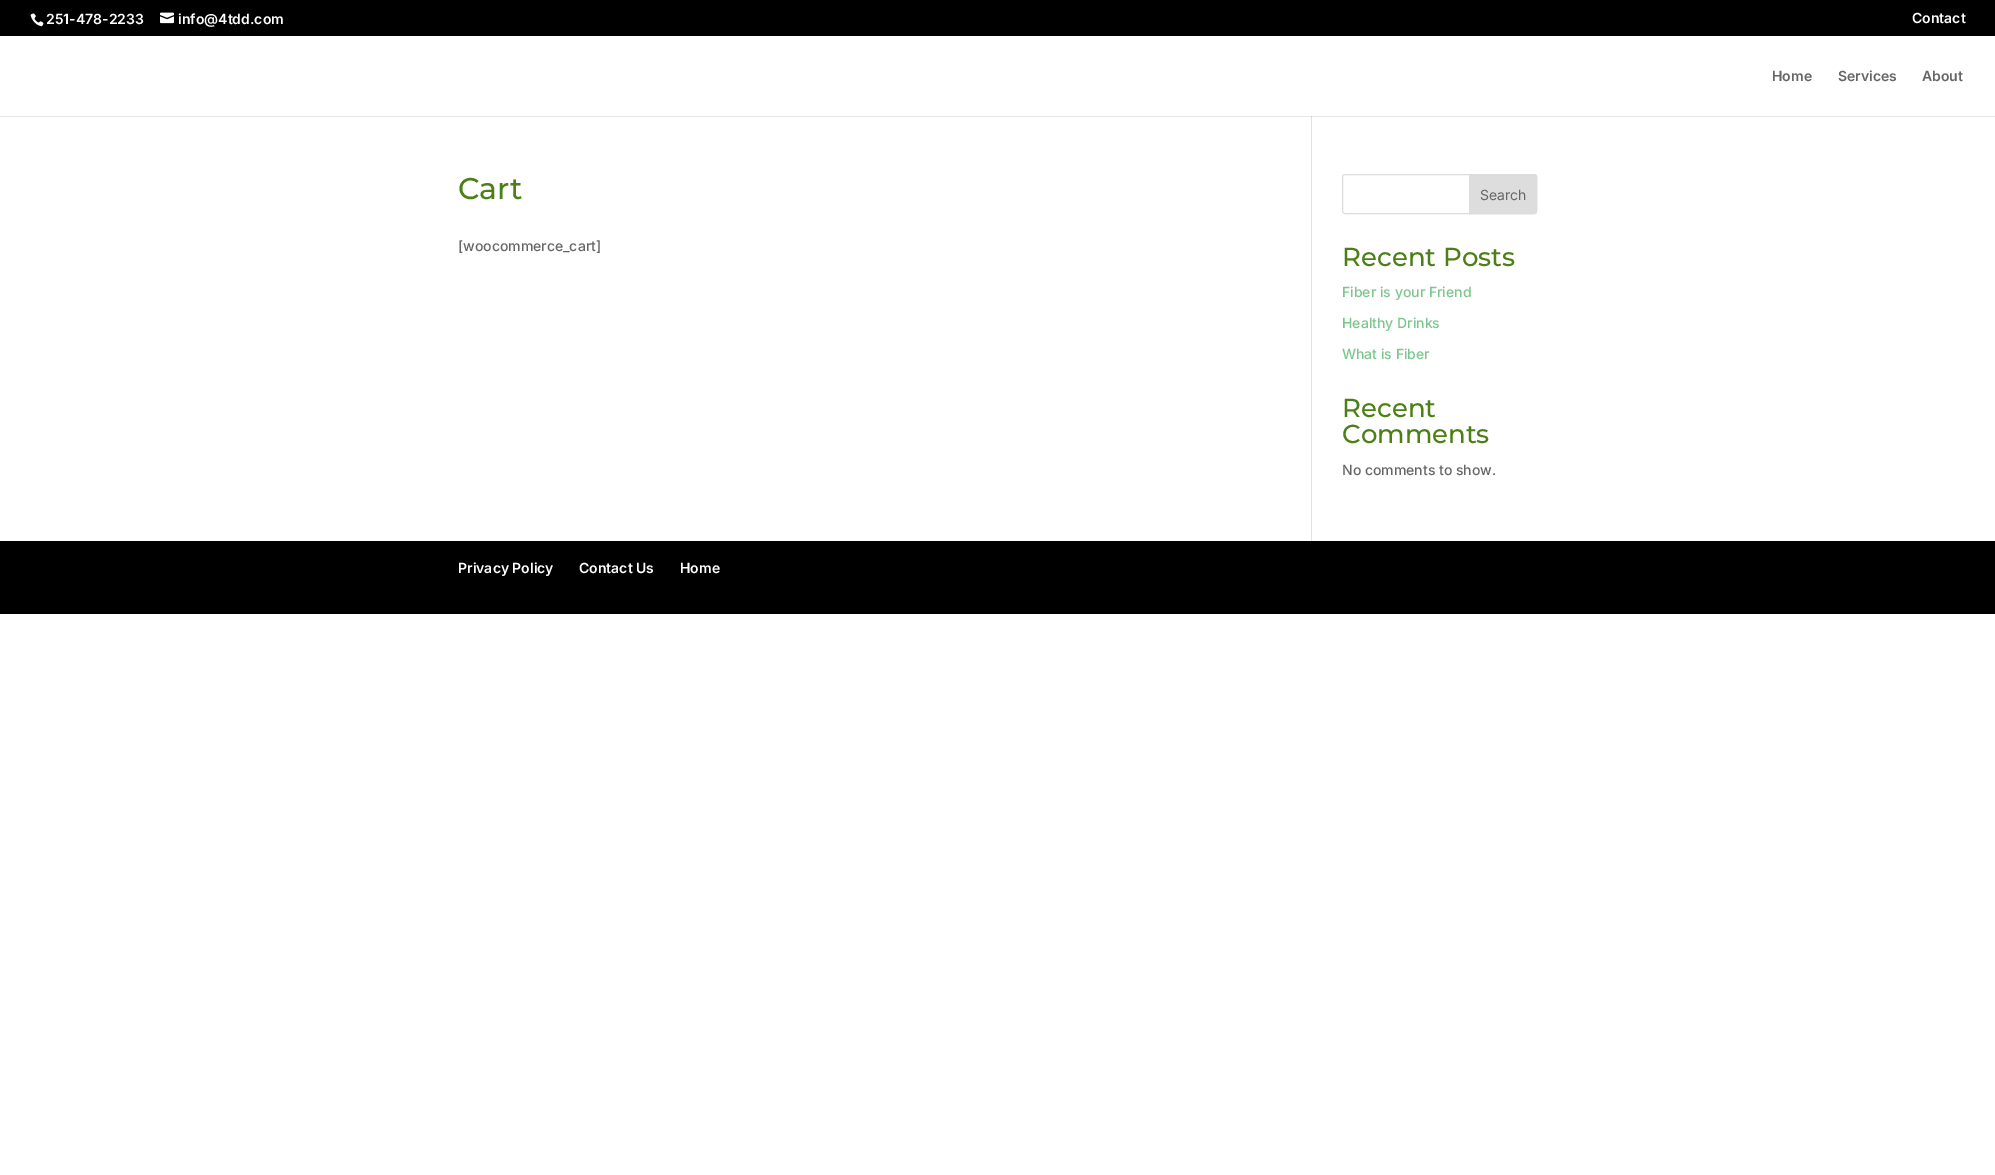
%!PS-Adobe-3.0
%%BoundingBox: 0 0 1995 1175
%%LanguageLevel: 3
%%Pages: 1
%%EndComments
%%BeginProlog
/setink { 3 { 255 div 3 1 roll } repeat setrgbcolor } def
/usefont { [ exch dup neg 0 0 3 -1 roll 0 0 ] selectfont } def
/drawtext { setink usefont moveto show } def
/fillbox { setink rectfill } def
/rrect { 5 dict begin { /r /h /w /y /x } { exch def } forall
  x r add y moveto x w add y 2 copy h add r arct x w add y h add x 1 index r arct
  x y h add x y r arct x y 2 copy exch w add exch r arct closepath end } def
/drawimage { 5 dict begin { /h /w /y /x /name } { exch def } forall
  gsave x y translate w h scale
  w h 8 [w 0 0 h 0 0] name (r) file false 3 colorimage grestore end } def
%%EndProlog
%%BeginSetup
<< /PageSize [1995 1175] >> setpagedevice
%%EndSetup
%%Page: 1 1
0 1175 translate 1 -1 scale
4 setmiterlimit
0 0 1995 1175 255 255 255 fillbox
0 116 1995 1 230 230 230 fillbox
0 0 1995 36 0 0 0 fillbox
(assets/img1.rgb) 30 13 14 14 drawimage
(251-478-2233) 46 24 /Inter-SemiBold 14 255 255 255 drawtext
(assets/img2.rgb) 160 12 14 12 drawimage
(info@4tdd.com) 178 24 /Inter-SemiBold 14 255 255 255 drawtext
(Contact) 1912 23 /Inter-SemiBold 14 255 255 255 drawtext
(Home) 1772 81 /Inter-SemiBold 14 102 102 102 drawtext
(Services) 1838 81 /Inter-SemiBold 14 102 102 102 drawtext
(About) 1922 81 /Inter-SemiBold 14 102 102 102 drawtext
1311 116 1 425 226 226 226 fillbox
1311 116 1 1 203 203 203 fillbox
(Cart) 458 199 /Montserrat-Thin 30 76 127 21 drawtext
([woocommerce_cart]) 458 251 /Inter-Medium 14 102 102 102 drawtext
221 221 221 setink
1342.5 174.5 194 39 2.5 rrect stroke
1469.5 174.5 moveto 1534 174.5 lineto 1535.5 174.5 1536.5 175.5 1536.5 177 curveto 1536.5 211 lineto 1536.5 212.5 1535.5 213.5 1534 213.5 curveto 1469.5 213.5 lineto closepath gsave fill grestore
stroke
(Search) 1480 200 /Inter-Regular 14 102 102 102 drawtext
(Recent Posts) 1342 266 /Montserrat-Thin 26 76 127 21 drawtext
(Fiber is your Friend) 1342 297 /Inter-Medium 14 124 198 141 drawtext
(Healthy Drinks) 1342 328 /Inter-Medium 14 124 198 141 drawtext
(What is Fiber) 1342 359 /Inter-Medium 14 124 198 141 drawtext
(Recent) 1342 417 /Montserrat-Thin 26 76 127 21 drawtext
(Comments) 1342 443 /Montserrat-Thin 26 76 127 21 drawtext
(No comments to show.) 1342 475 /Inter-Medium 14 102 102 102 drawtext
0 541 1995 73 0 0 0 fillbox
(Privacy Policy) 458 573 /Inter-SemiBold 14 255 255 255 drawtext
(Contact Us) 579 573 /Inter-SemiBold 14 255 255 255 drawtext
(Home) 680 573 /Inter-SemiBold 14 255 255 255 drawtext
showpage
%%EOF
